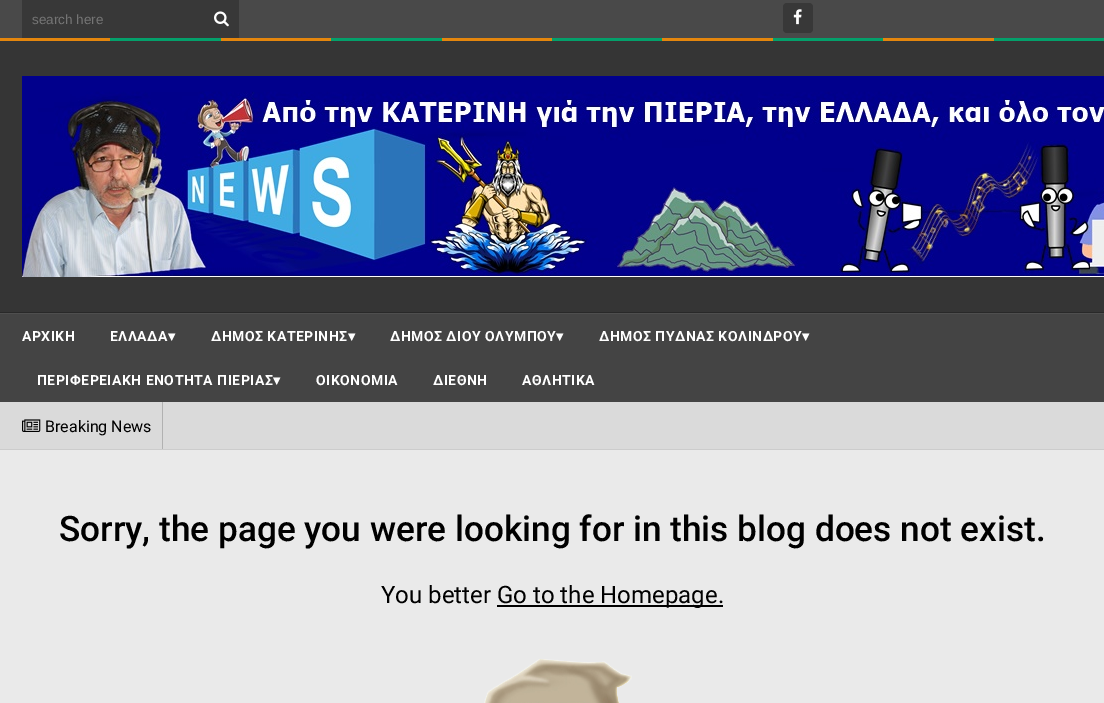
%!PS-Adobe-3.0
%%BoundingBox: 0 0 1104 703
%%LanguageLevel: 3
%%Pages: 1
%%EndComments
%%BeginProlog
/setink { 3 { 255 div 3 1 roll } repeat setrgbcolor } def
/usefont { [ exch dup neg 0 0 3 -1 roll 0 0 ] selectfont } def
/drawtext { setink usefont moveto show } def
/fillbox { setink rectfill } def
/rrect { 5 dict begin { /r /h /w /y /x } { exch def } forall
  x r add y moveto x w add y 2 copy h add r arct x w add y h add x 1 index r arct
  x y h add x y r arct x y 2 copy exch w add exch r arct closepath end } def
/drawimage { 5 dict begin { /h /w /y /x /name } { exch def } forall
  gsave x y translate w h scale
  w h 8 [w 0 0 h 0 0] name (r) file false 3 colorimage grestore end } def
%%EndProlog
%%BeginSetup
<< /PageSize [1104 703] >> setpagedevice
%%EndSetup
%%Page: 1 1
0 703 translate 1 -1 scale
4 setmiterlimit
0 0 1104 703 234 234 234 fillbox
0 0 1104 38 73 73 73 fillbox
22 0 217 38 56 56 56 fillbox
(search here) 32 24 /LiberationSans-Regular 13.5 117 117 117 drawtext
(assets/img1.rgb) 214 11 15 16 drawimage
56 56 56 setink
783 3 30 30 4 rrect fill
(assets/img2.rgb) 793 9 9 16 drawimage
0 38 110 3 228 134 13 fillbox
110 38 111 3 4 160 107 fillbox
221 38 110 3 228 134 13 fillbox
331 38 111 3 4 160 107 fillbox
442 38 110 3 228 134 13 fillbox
552 38 110 3 4 160 107 fillbox
662 38 111 3 228 134 13 fillbox
773 38 110 3 4 160 107 fillbox
883 38 111 3 228 134 13 fillbox
994 38 110 3 4 160 107 fillbox
0 41 1104 271 53 53 53 fillbox
(assets/img3.rgb) 22 76 1082 201 drawimage
0 314 1104 88 68 68 68 fillbox
0 312 1104 1 41 41 41 fillbox
0 313 1104 1 79 79 79 fillbox
/Roboto-Bold 14 usefont
255 255 255 setink
22 341 moveto 0.5 0 (ΑΡΧΙΚΗ) ashow
110 341 moveto 0.5 0 (ΕΛΛΑΔΑ) ashow
/DejaVuSans-Bold 14 usefont
168 341 moveto 0.5 0 (▾) ashow
/Roboto-Bold 14 usefont
211 341 moveto 0.5 0 (ΔΗΜΟΣ ΚΑΤΕΡΙΝΗΣ) ashow
/DejaVuSans-Bold 14 usefont
348 341 moveto 0.5 0 (▾) ashow
/Roboto-Bold 14 usefont
390 341 moveto 0.5 0 (ΔΗΜΟΣ ΔΙΟΥ ΟΛΥΜΠΟΥ) ashow
/DejaVuSans-Bold 14 usefont
556 341 moveto 0.5 0 (▾) ashow
/Roboto-Bold 14 usefont
599 341 moveto 0.5 0 (ΔΗΜΟΣ ΠΥΔΝΑΣ ΚΟΛΙΝΔΡΟΥ) ashow
/DejaVuSans-Bold 14 usefont
802 341 moveto 0.5 0 (▾) ashow
/Roboto-Bold 14 usefont
37 385 moveto 0.5 0 (ΠΕΡΙΦΕΡΕΙΑΚΗ ΕΝΟΤΗΤΑ ΠΙΕΡΙΑΣ) ashow
/DejaVuSans-Bold 14 usefont
273 385 moveto 0.5 0 (▾) ashow
/Roboto-Bold 14 usefont
316 385 moveto 0.5 0 (ΟΙΚΟΝΟΜΙΑ) ashow
433 385 moveto 0.5 0 (ΔΙΕΘΝΗ) ashow
522 385 moveto 0.5 0 (ΑΘΛΗΤΙΚΑ) ashow
0 402 1104 47 218 218 218 fillbox
0 449 1104 1 204 204 204 fillbox
162 402 1 47 177 177 177 fillbox
(assets/img4.rgb) 22 419 19 13 drawimage
(Breaking News) 45 432 /Roboto-Regular 16 0 0 0 drawtext
(Sorry, the page you were looking for in this blog does not exist.) 59 541 /Roboto-Medium 35.2 0 0 0 drawtext
(You better) 381 603 /Roboto-Regular 24 0 0 0 drawtext
497 605 226 2 0 0 0 fillbox
(Go to the Homepage.) 497 603 /Roboto-Regular 24 0 0 0 drawtext
(assets/img5.rgb) 484 659 148 44 drawimage
showpage
%%EOF
